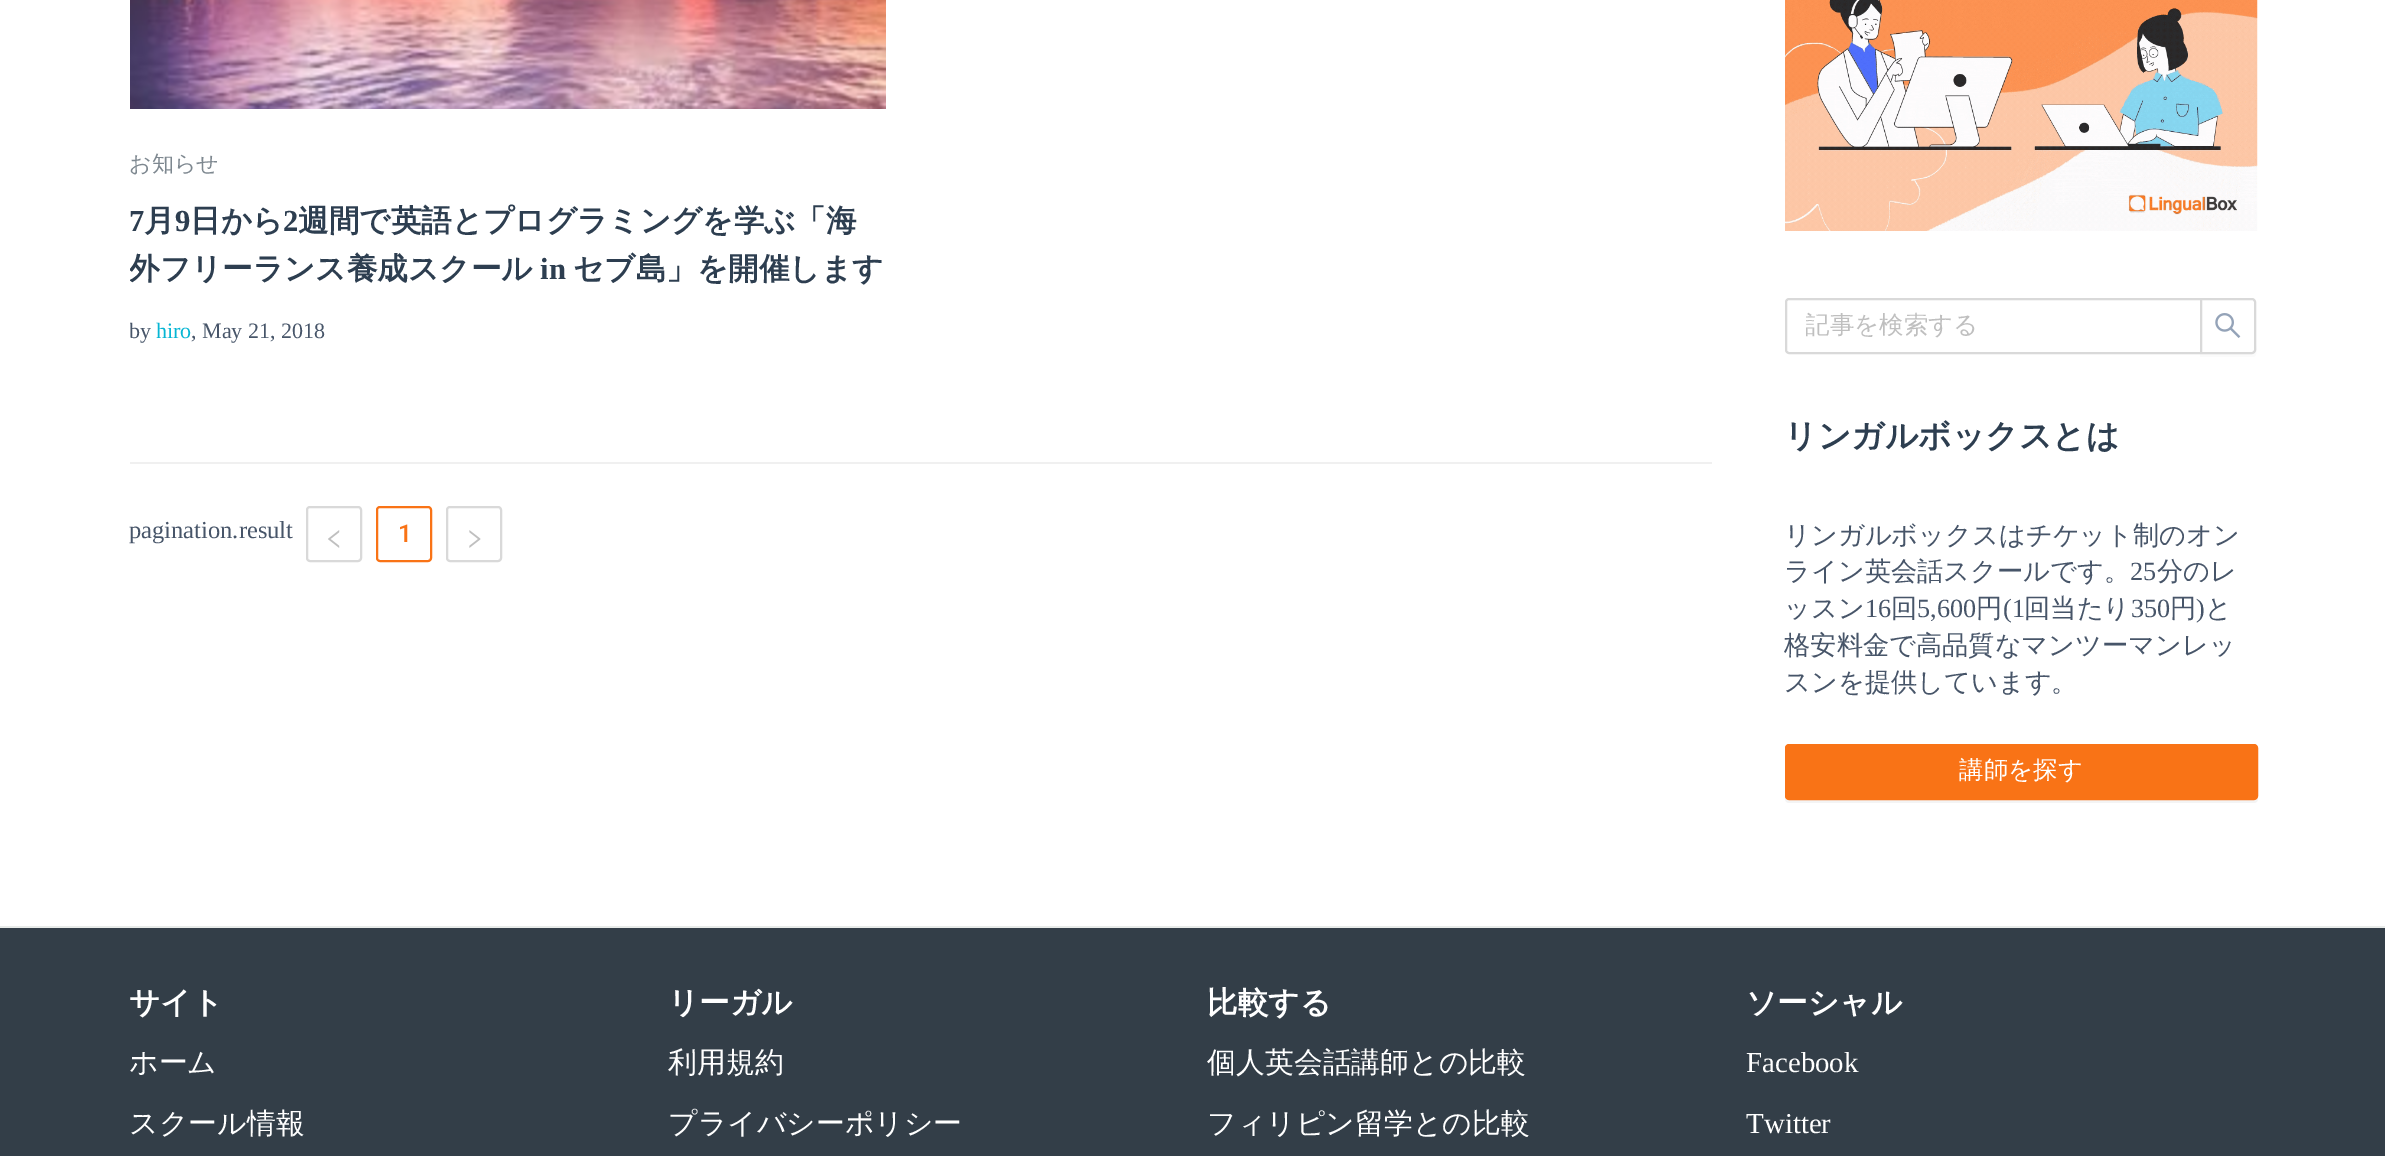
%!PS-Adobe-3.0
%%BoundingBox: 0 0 2385 1156
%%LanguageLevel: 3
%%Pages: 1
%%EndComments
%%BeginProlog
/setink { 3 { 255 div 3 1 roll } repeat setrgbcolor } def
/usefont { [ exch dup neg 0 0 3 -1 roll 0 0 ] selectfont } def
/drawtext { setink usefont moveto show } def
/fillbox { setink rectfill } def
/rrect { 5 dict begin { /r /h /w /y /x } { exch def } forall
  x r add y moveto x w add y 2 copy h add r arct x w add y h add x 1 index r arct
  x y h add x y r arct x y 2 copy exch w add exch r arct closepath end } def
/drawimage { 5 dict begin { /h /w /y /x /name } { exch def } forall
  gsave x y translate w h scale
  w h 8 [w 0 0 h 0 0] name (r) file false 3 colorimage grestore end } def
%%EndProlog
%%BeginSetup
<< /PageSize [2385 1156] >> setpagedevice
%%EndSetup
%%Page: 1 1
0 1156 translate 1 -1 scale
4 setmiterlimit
0 0 2385 1156 255 255 255 fillbox
(assets/img1.rgb) 130 0 756 109 drawimage
(お知らせ) 129 171 /WenQuanYiZenHei-Medium 22 126 136 144 drawtext
(7) 129 231 /LiberationSerif-Bold 30.6 45 62 80 drawtext
(月) 144 231 /WenQuanYiZenHei-Bold 30.6 45 62 80 drawtext
(9) 175 231 /LiberationSerif-Bold 30.6 45 62 80 drawtext
(日から) 190 231 /WenQuanYiZenHei-Bold 30.6 45 62 80 drawtext
(2) 283 231 /LiberationSerif-Bold 30.6 45 62 80 drawtext
(週間で英語とプログラミングを学ぶ「海) 298 231 /WenQuanYiZenHei-Bold 30.6 45 62 80 drawtext
gsave
130 0 756 350 rectclip
(外フリーランス養成スクール) 129 279 /WenQuanYiZenHei-Bold 30.6 45 62 80 drawtext
grestore
(in) 540 279 /LiberationSerif-Bold 30.6 45 62 80 drawtext
(セブ島」を開催します) 573 279 /WenQuanYiZenHei-Bold 30.6 45 62 80 drawtext
gsave
130 0 756 350 rectclip
(by) 129 338 /LiberationSerif-Regular 22 71 85 105 drawtext
grestore
(hiro) 156 338 /LiberationSerif-Regular 22 6 182 212 drawtext
(, May 21, 2018) 191 338 /LiberationSerif-Regular 22 71 85 105 drawtext
130 462 1582 2 240 240 240 fillbox
(pagination.result) 129 538 /LiberationSerif-Regular 24.5 71 85 105 drawtext
217 217 217 setink
2 setlinewidth
307 507 54 54 3 rrect stroke
(assets/img2.rgb) 328 530 12 18 drawimage
249 115 22 setink
377 507 54 54 3 rrect stroke
(1) 398 542 /Roboto-Medium 24.5 249 115 22 drawtext
217 217 217 setink
447 507 54 54 3 rrect stroke
(assets/img3.rgb) 469 530 12 18 drawimage
(assets/img4.rgb) 1785 0 473 231 drawimage
1789 299 moveto 2201 299 lineto 2201 353 lineto 1789 353 lineto 1787.5 353 1786 351.5 1786 350 curveto 1786 302 lineto 1786 300.5 1787.5 299 1789 299 curveto closepath stroke
gsave
1806 310 375 31 rectclip
(記事を検索する) 1805 333 /WenQuanYiZenHei-Medium 24.5 191 191 191 drawtext
grestore
251 251 251 setink
2200 354 moveto 2200 357 lineto 2253 357 lineto 2258 356 2256 348 2256 345 curveto 2256 304 lineto 2256 350 lineto 2256 352 2254 354 2252 354 curveto closepath fill
255 255 255 setink
2201 299 moveto 2252 299 lineto 2253.5 299 2255 300.5 2255 302 curveto 2255 350 lineto 2255 351.5 2253.5 353 2252 353 curveto 2201 353 lineto closepath gsave fill grestore
217 217 217 setink
stroke
(assets/img5.rgb) 2215 313 26 25 drawimage
(リンガルボックスとは) 1784 447 /WenQuanYiZenHei-Bold 32.75 45 62 80 drawtext
(リンガルボックスはチケット制のオン) 1784 544 /WenQuanYiZenHei-Medium 26.25 71 85 105 drawtext
(ライン英会話スクールです。) 1784 580 /WenQuanYiZenHei-Medium 26.25 71 85 105 drawtext
(25) 2130 580 /LiberationSerif-Regular 26.25 71 85 105 drawtext
(分のレ) 2157 580 /WenQuanYiZenHei-Medium 26.25 71 85 105 drawtext
(ッスン) 1784 617 /WenQuanYiZenHei-Medium 26.25 71 85 105 drawtext
(16) 1865 617 /LiberationSerif-Regular 26.25 71 85 105 drawtext
(回) 1891 617 /WenQuanYiZenHei-Medium 26.25 71 85 105 drawtext
(5,600) 1917 617 /LiberationSerif-Regular 26.25 71 85 105 drawtext
(円) 1976 617 /WenQuanYiZenHei-Medium 26.25 71 85 105 drawtext
(\(1) 2003 617 /LiberationSerif-Regular 26.25 71 85 105 drawtext
(回当たり) 2024 617 /WenQuanYiZenHei-Medium 26.25 71 85 105 drawtext
(350) 2131 617 /LiberationSerif-Regular 26.25 71 85 105 drawtext
(円) 2170 617 /WenQuanYiZenHei-Medium 26.25 71 85 105 drawtext
(\)) 2196 617 /LiberationSerif-Regular 26.25 71 85 105 drawtext
(と) 2205 617 /WenQuanYiZenHei-Medium 26.25 71 85 105 drawtext
(格安料金で高品質なマンツーマンレッ) 1784 654 /WenQuanYiZenHei-Medium 26.25 71 85 105 drawtext
(スンを提供しています。) 1784 691 /WenQuanYiZenHei-Medium 26.25 71 85 105 drawtext
244 244 244 setink
1785 796 moveto 1785 799 lineto 1785 801 1787 803 1789 803 curveto 2254 803 lineto 2256 803 2258 801 2258 799 curveto 2258 751 lineto 2258 749 lineto 2258 796 lineto 2258 798 2256 800 2254 800 curveto 1788 800 lineto 1787 800 1785 798 1785 796 curveto closepath fill
249 115 22 setink
1786 745 471 54 3 rrect gsave fill grestore
stroke
(講師を探す) 1959 778 /WenQuanYiZenHei-Medium 24.5 255 255 255 drawtext
0 928 2385 228 51 62 72 fillbox
0 926 2385 2 232 235 233 fillbox
(サイト) 129 1013 /WenQuanYiZenHei-Bold 30.6 255 255 255 drawtext
(ホーム) 129 1072 /WenQuanYiZenHei-Medium 28.9 255 255 255 drawtext
(スクール情報) 129 1133 /WenQuanYiZenHei-Medium 28.9 255 255 255 drawtext
(リーガル) 668 1013 /WenQuanYiZenHei-Bold 30.6 255 255 255 drawtext
(利用規約) 668 1072 /WenQuanYiZenHei-Medium 28.9 255 255 255 drawtext
(プライバシーポリシー) 668 1133 /WenQuanYiZenHei-Medium 28.9 255 255 255 drawtext
(比較する) 1207 1013 /WenQuanYiZenHei-Bold 30.6 255 255 255 drawtext
(個人英会話講師との比較) 1207 1072 /WenQuanYiZenHei-Medium 28.9 255 255 255 drawtext
(フィリピン留学との比較) 1207 1133 /WenQuanYiZenHei-Medium 28.9 255 255 255 drawtext
(ソーシャル) 1746 1013 /WenQuanYiZenHei-Bold 30.6 255 255 255 drawtext
(Facebook) 1746 1072 /LiberationSerif-Regular 28.9 255 255 255 drawtext
(Twitter) 1746 1133 /LiberationSerif-Regular 28.9 255 255 255 drawtext
showpage
%%EOF
